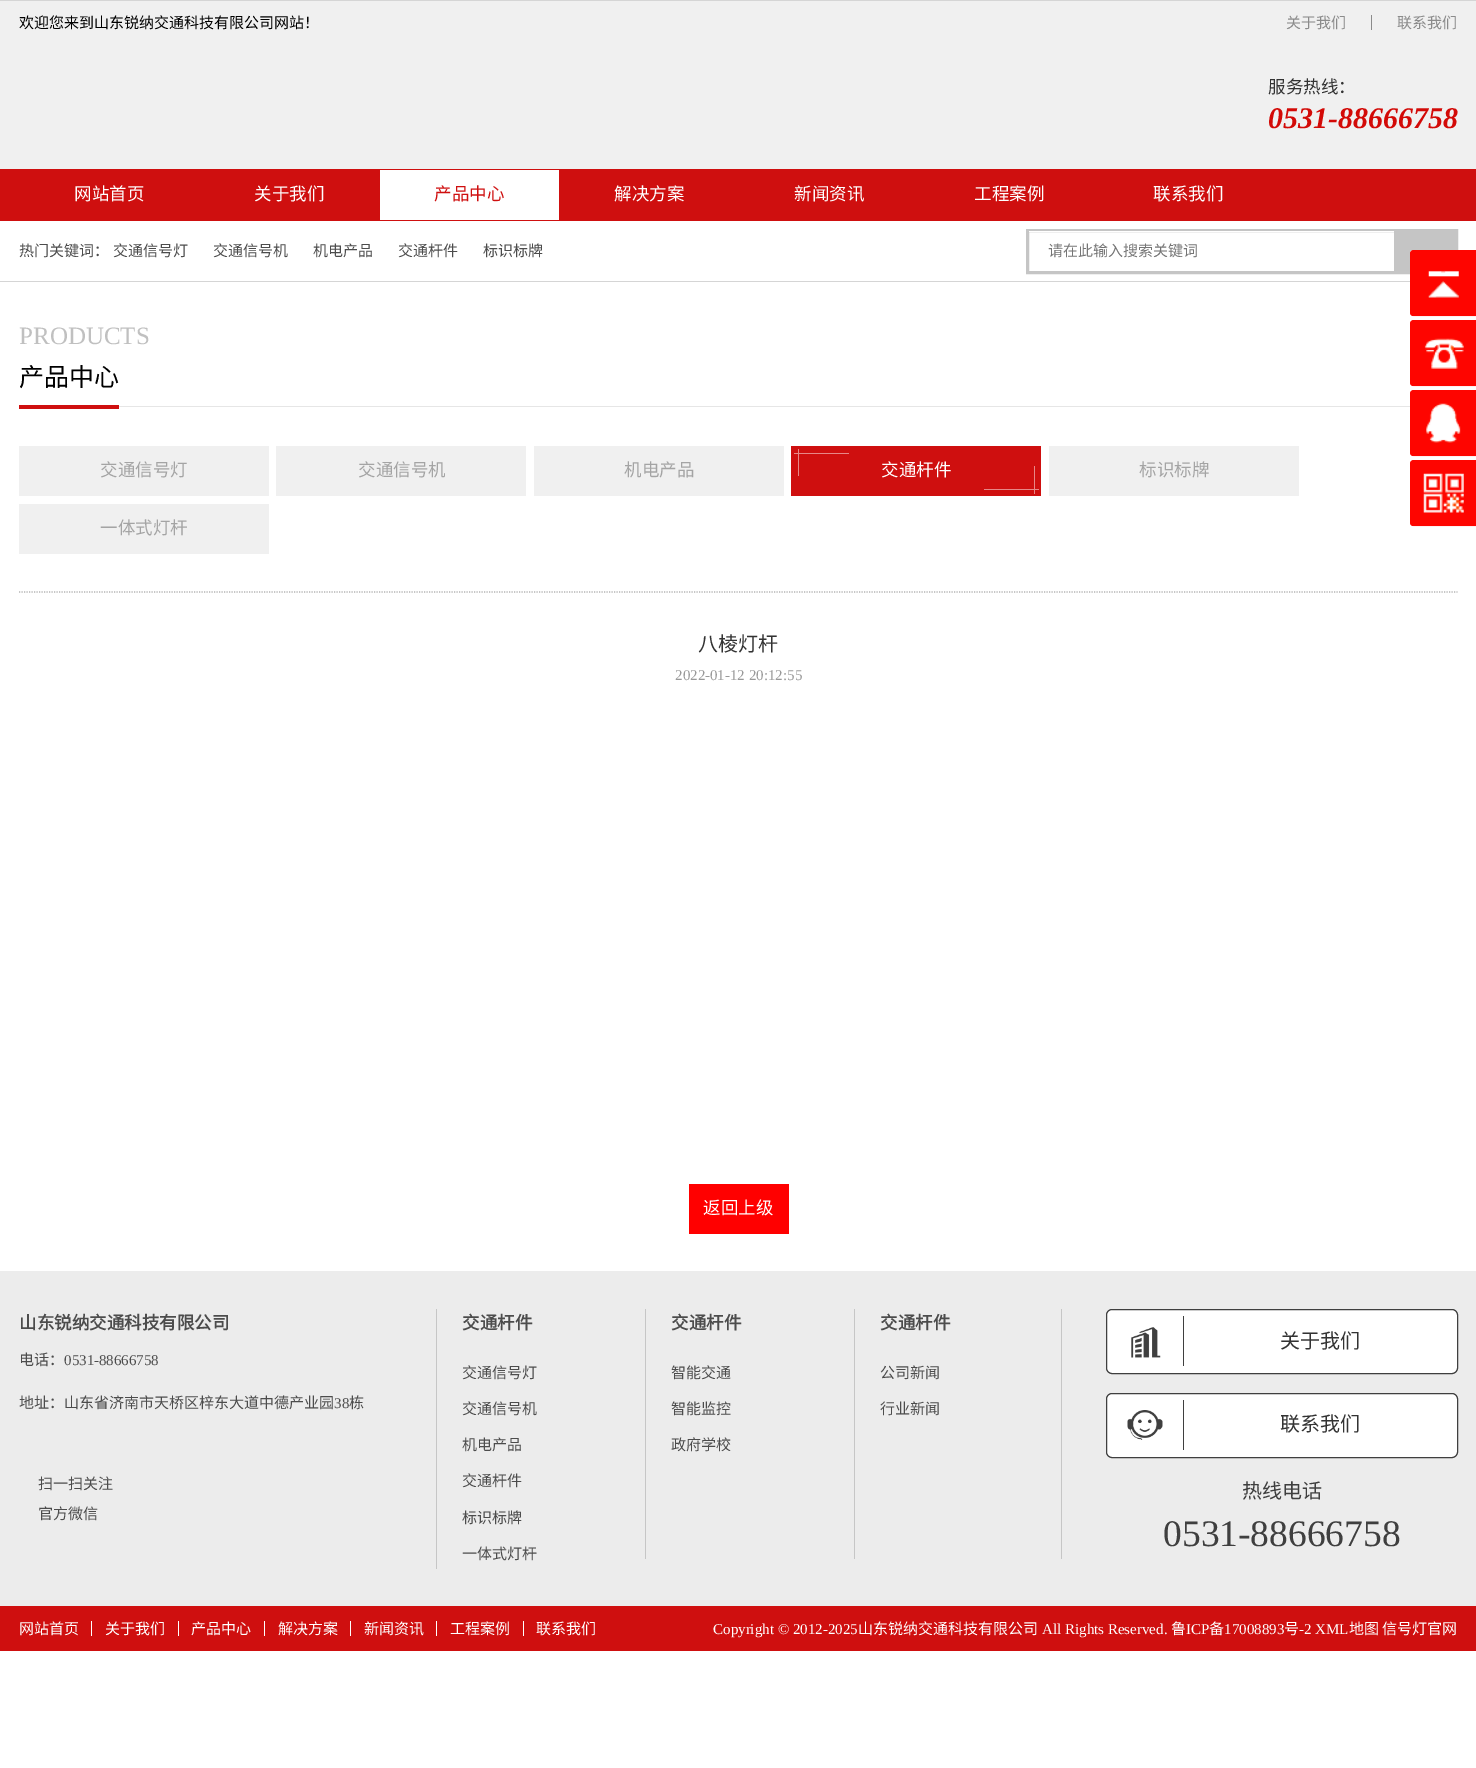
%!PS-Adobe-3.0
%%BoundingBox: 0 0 1476 1768
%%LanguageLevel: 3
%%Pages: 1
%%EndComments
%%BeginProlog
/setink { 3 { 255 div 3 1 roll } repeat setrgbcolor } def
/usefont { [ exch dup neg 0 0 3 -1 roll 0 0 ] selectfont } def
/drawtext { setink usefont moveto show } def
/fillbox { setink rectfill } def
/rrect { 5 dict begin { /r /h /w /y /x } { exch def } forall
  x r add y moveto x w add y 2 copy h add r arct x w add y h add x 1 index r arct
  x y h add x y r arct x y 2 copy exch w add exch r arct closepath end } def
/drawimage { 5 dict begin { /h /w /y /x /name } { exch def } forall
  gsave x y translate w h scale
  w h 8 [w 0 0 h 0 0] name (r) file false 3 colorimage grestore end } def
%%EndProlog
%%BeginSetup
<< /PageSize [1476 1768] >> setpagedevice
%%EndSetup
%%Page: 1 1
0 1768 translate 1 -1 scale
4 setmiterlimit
0 0 1476 1768 255 255 255 fillbox
0 1 1476 168 240 240 240 fillbox
0 0 1476 1 213 213 213 fillbox
(欢迎您来到山东锐纳交通科技有限公司网站！) 19 28 /NotoSansCJKSC-Regular 15 0 0 0 drawtext
(关于我们) 1286 28 /NotoSansCJKSC-Regular 15 139 139 139 drawtext
1371 15 1 15 139 139 139 fillbox
(联系我们) 1397 28 /NotoSansCJKSC-Regular 15 139 139 139 drawtext
(服务热线：) 1268 93 /NotoSansCJKSC-Regular 17.5 51 51 51 drawtext
(0531-88666758) 1268 128 /LiberationSerif-BoldItalic 30 211 10 7 drawtext
0 169 1476 52 207 15 15 fillbox
(网站首页) 74 200 /NotoSansCJKSC-Regular 17.5 255 255 255 drawtext
(关于我们) 254 200 /NotoSansCJKSC-Regular 17.5 255 255 255 drawtext
380 170 179 50 255 255 255 fillbox
(产品中心) 434 200 /NotoSansCJKSC-Regular 17.5 207 15 15 drawtext
(解决方案) 614 200 /NotoSansCJKSC-Regular 17.5 255 255 255 drawtext
(新闻资讯) 794 200 /NotoSansCJKSC-Regular 17.5 255 255 255 drawtext
(工程案例) 974 200 /NotoSansCJKSC-Regular 17.5 255 255 255 drawtext
(联系我们) 1153 200 /NotoSansCJKSC-Regular 17.5 255 255 255 drawtext
0 281 1410 1 213 213 213 fillbox
(热门关键词：) 19 256 /NotoSansCJKSC-Regular 15 76 76 76 drawtext
(交通信号灯) 113 256 /NotoSansCJKSC-Regular 15 76 76 76 drawtext
(交通信号机) 213 256 /NotoSansCJKSC-Regular 15 76 76 76 drawtext
(机电产品) 313 256 /NotoSansCJKSC-Regular 15 76 76 76 drawtext
(交通杆件) 398 256 /NotoSansCJKSC-Regular 15 76 76 76 drawtext
(标识标牌) 483 256 /NotoSansCJKSC-Regular 15 76 76 76 drawtext
197 197 197 setink
3 setlinewidth
1027.5 230.5 429 42 rectstroke
1029 231 365 1 255 255 255 fillbox
(请在此输入搜索关键词) 1048 256 /NotoSansCJKSC-Regular 15 117 117 117 drawtext
1394 232 61 39 197 197 197 fillbox
(assets/img1.rgb) 1410 250 66 67 drawimage
(assets/img2.rgb) 1410 320 66 67 drawimage
(assets/img3.rgb) 1410 390 66 67 drawimage
(assets/img4.rgb) 1410 460 66 67 drawimage
119 406 1291 1 230 230 230 fillbox
(PRODUCTS) 19 344 /LiberationSerif-Regular 25 192 192 192 drawtext
19 405 100 4 207 15 15 fillbox
(产品中心) 19 386 /NotoSansCJKSC-Regular 25 0 0 0 drawtext
19 446 250 50 240 240 240 fillbox
(交通信号灯) 100 476 /NotoSansCJKSC-Regular 17.5 164 164 164 drawtext
276 446 250 50 240 240 240 fillbox
(交通信号机) 358 476 /NotoSansCJKSC-Regular 17.5 164 164 164 drawtext
534 446 250 50 240 240 240 fillbox
(机电产品) 624 476 /NotoSansCJKSC-Regular 17.5 164 164 164 drawtext
791 446 250 50 207 15 15 fillbox
794 453 55 1 231 135 135 fillbox
798 449 1 27 231 135 135 fillbox
(交通杆件) 881 476 /NotoSansCJKSC-Regular 17.5 255 255 255 drawtext
984 489 55 1 231 135 135 fillbox
1034 466 1 28 231 135 135 fillbox
1049 446 250 50 240 240 240 fillbox
(标识标牌) 1139 476 /NotoSansCJKSC-Regular 17.5 164 164 164 drawtext
19 504 250 50 240 240 240 fillbox
(一体式灯杆) 100 534 /NotoSansCJKSC-Regular 17.5 164 164 164 drawtext
180 180 180 setink
1.2 setlinewidth
[1.25 1.25] 0 setdash
19 592 moveto 1457.5 592 lineto stroke
(八棱灯杆) 698 651 /NotoSansCJKSC-Regular 20 51 51 51 drawtext
(2022-01-12 20:12:55) 675 680 /LiberationSerif-Regular 15 153 153 153 drawtext
689 1184 100 50 255 0 0 fillbox
(返回上级) 703 1214 /NotoSansCJKSC-Regular 17.5 255 255 255 drawtext
0 1271 1476 335 236 236 236 fillbox
(山东锐纳交通科技有限公司) 19 1329 /NotoSansCJKSC-Bold 17.5 76 76 76 drawtext
(电话：) 19 1365 /NotoSansCJKSC-Regular 15 76 76 76 drawtext
(0531-88666758) 64 1365 /LiberationSerif-Regular 15 76 76 76 drawtext
(地址：山东省济南市天桥区梓东大道中德产业园) 19 1408 /NotoSansCJKSC-Regular 15 76 76 76 drawtext
(38) 334 1408 /LiberationSerif-Regular 15 76 76 76 drawtext
(栋) 349 1408 /NotoSansCJKSC-Regular 15 76 76 76 drawtext
(扫一扫关注) 38 1489 /NotoSansCJKSC-Regular 15 76 76 76 drawtext
(官方微信) 38 1519 /NotoSansCJKSC-Regular 15 76 76 76 drawtext
436 1309 1 260 198 198 198 fillbox
(交通杆件) 462 1329 /NotoSansCJKSC-Bold 17.5 76 76 76 drawtext
(交通信号灯) 462 1378 /NotoSansCJKSC-Regular 15 76 76 76 drawtext
(交通信号机) 462 1414 /NotoSansCJKSC-Regular 15 76 76 76 drawtext
(机电产品) 462 1450 /NotoSansCJKSC-Regular 15 76 76 76 drawtext
(交通杆件) 462 1486 /NotoSansCJKSC-Regular 15 76 76 76 drawtext
(标识标牌) 462 1523 /NotoSansCJKSC-Regular 15 76 76 76 drawtext
(一体式灯杆) 462 1559 /NotoSansCJKSC-Regular 15 76 76 76 drawtext
645 1309 1 250 198 198 198 fillbox
(交通杆件) 671 1329 /NotoSansCJKSC-Bold 17.5 76 76 76 drawtext
(智能交通) 671 1378 /NotoSansCJKSC-Regular 15 76 76 76 drawtext
(智能监控) 671 1414 /NotoSansCJKSC-Regular 15 76 76 76 drawtext
(政府学校) 671 1450 /NotoSansCJKSC-Regular 15 76 76 76 drawtext
1061 1309 1 250 198 198 198 fillbox
854 1309 1 250 198 198 198 fillbox
(交通杆件) 880 1329 /NotoSansCJKSC-Bold 17.5 76 76 76 drawtext
(公司新闻) 880 1378 /NotoSansCJKSC-Regular 15 76 76 76 drawtext
(行业新闻) 880 1414 /NotoSansCJKSC-Regular 15 76 76 76 drawtext
255 255 255 setink
1106.5 1309.5 351 64 5.5 rrect gsave fill grestore
63 63 63 setink
1 setlinewidth
[] 0 setdash
stroke
(assets/img5.rgb) 1131 1327 30 31 drawimage
1183 1316 1 50 63 63 63 fillbox
(关于我们) 1280 1348 /NotoSansCJKSC-Regular 20 51 51 51 drawtext
255 255 255 setink
1106.5 1393.5 351 64 5.5 rrect gsave fill grestore
63 63 63 setink
stroke
(assets/img6.rgb) 1127 1410 36 30 drawimage
1183 1400 1 50 63 63 63 fillbox
(联系我们) 1280 1431 /NotoSansCJKSC-Regular 20 51 51 51 drawtext
(热线电话) 1242 1498 /NotoSansCJKSC-Regular 20 63 63 63 drawtext
(0531-88666758) 1163 1546 /LiberationSerif-Regular 37.5 63 63 63 drawtext
0 1606 1476 45 207 15 15 fillbox
(网站首页) 19 1634 /NotoSansCJKSC-Regular 15 255 255 255 drawtext
91 1621 1 15 255 255 255 fillbox
(关于我们) 105 1634 /NotoSansCJKSC-Regular 15 255 255 255 drawtext
178 1621 1 15 255 255 255 fillbox
(产品中心) 191 1634 /NotoSansCJKSC-Regular 15 255 255 255 drawtext
264 1621 1 15 255 255 255 fillbox
(解决方案) 278 1634 /NotoSansCJKSC-Regular 15 255 255 255 drawtext
350 1621 1 15 255 255 255 fillbox
(新闻资讯) 364 1634 /NotoSansCJKSC-Regular 15 255 255 255 drawtext
436 1621 1 15 255 255 255 fillbox
(工程案例) 450 1634 /NotoSansCJKSC-Regular 15 255 255 255 drawtext
523 1621 1 15 255 255 255 fillbox
(联系我们) 536 1634 /NotoSansCJKSC-Regular 15 255 255 255 drawtext
(Copyright © 2012-2025) 713 1634 /LiberationSerif-Regular 15 255 255 255 drawtext
(山东锐纳交通科技有限公司) 858 1634 /NotoSansCJKSC-Regular 15 255 255 255 drawtext
(All Rights Reserved.) 1042 1634 /LiberationSerif-Regular 15 255 255 255 drawtext
(鲁) 1171 1634 /NotoSansCJKSC-Regular 15 255 255 255 drawtext
(ICP) 1186 1634 /LiberationSerif-Regular 15 255 255 255 drawtext
(备) 1209 1634 /NotoSansCJKSC-Regular 15 255 255 255 drawtext
(17008893) 1224 1634 /LiberationSerif-Regular 15 255 255 255 drawtext
(号) 1284 1634 /NotoSansCJKSC-Regular 15 255 255 255 drawtext
(-2 XML) 1299 1634 /LiberationSerif-Regular 15 255 255 255 drawtext
(地图) 1349 1634 /NotoSansCJKSC-Regular 15 255 255 255 drawtext
(信号灯官网) 1382 1634 /NotoSansCJKSC-Regular 15 255 255 255 drawtext
showpage
%%EOF
